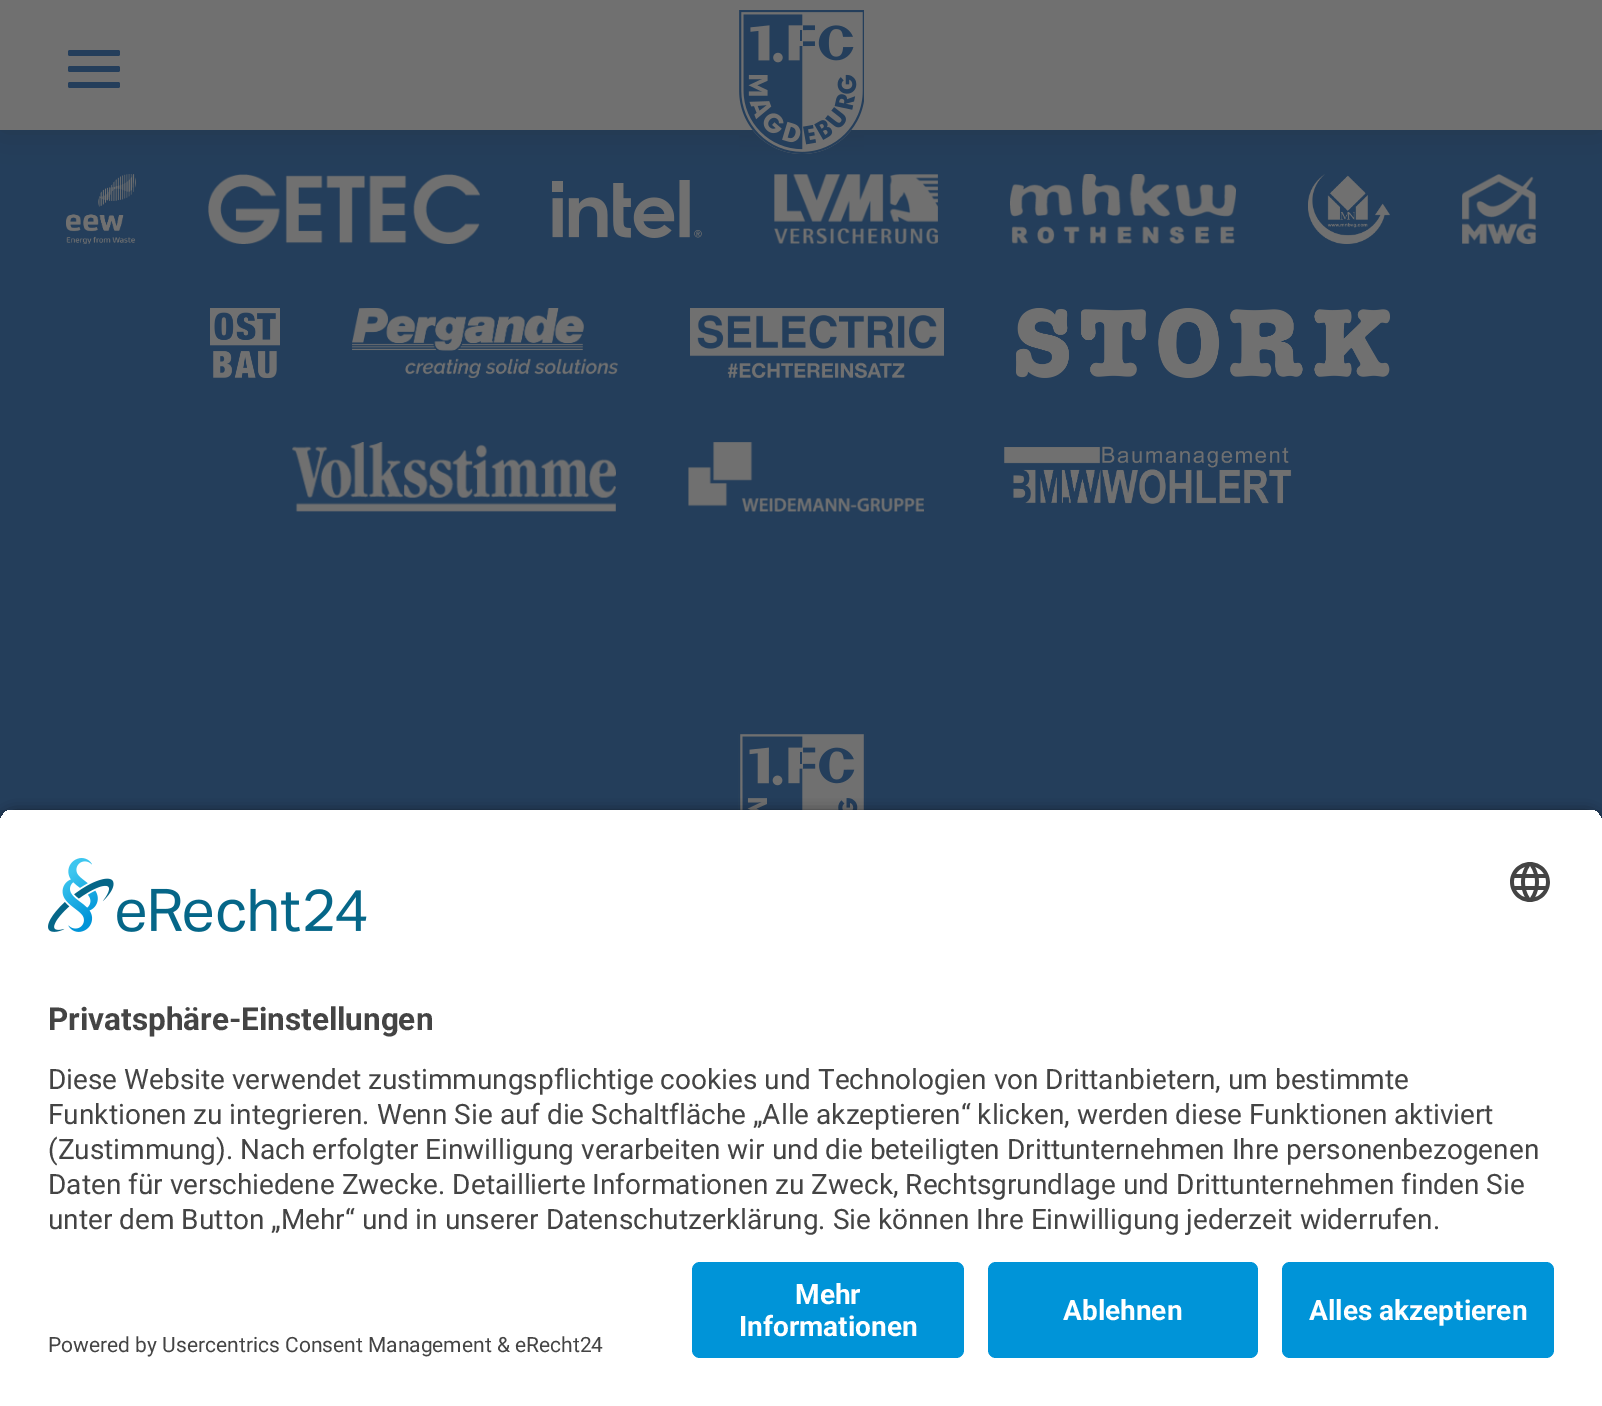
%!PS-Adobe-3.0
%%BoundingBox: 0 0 1602 1406
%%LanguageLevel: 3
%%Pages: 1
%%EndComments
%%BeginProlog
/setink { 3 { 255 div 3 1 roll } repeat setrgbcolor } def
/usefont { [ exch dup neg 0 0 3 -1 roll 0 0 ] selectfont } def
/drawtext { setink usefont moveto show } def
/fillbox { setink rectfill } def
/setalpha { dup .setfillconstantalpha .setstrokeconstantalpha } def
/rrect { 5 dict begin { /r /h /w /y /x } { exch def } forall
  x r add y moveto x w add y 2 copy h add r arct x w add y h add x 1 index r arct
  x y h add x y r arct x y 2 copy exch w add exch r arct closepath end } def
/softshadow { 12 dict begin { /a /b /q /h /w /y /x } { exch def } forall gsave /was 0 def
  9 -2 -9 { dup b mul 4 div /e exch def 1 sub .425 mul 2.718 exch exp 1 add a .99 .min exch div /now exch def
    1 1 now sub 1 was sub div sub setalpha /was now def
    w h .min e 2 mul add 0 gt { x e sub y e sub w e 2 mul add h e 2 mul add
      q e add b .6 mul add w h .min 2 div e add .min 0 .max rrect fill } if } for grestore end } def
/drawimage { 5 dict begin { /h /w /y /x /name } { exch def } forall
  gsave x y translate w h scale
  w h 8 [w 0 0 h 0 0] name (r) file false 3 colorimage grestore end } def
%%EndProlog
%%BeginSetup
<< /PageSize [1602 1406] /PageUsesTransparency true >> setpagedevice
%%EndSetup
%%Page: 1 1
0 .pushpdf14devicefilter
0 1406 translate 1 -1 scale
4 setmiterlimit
0 0 1602 1406 36 62 91 fillbox
(assets/img2.rgb) 66 174 70 70 drawimage
(assets/img3.rgb) 208 174 272 70 drawimage
(assets/img4.rgb) 552 180 150 58 drawimage
(assets/img5.rgb) 774 174 164 70 drawimage
(assets/img6.rgb) 1010 174 226 70 drawimage
(assets/img7.rgb) 1308 174 82 70 drawimage
(assets/img8.rgb) 1462 174 74 70 drawimage
36 36 36 setink
0 0 1602 130 0 20 0.25 softshadow
0 0 1602 130 112 112 112 fillbox
36 62 91 setink
68 50 52 6 2 rrect fill
68 66 52 6 2 rrect fill
68 82 52 6 2 rrect fill
(assets/img1.rgb) 739 10 125 144 drawimage
(assets/img9.rgb) 210 308 70 70 drawimage
(assets/img10.rgb) 352 308 266 70 drawimage
(assets/img11.rgb) 690 308 254 70 drawimage
(assets/img12.rgb) 1016 308 374 70 drawimage
(assets/img13.rgb) 292 442 324 70 drawimage
(assets/img14.rgb) 688 442 236 70 drawimage
(assets/img15.rgb) 1004 446 288 58 drawimage
(assets/img16.rgb) 738 732 128 78 drawimage
0 0 0 setink
0 814 1602 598 16 7 0.8 softshadow
gsave
16 808 moveto 1586 808 lineto 1595 808 1602 815 1602 824 curveto 1602 1246 lineto 0 1246 lineto 0 824 lineto 0 815 7 808 16 808 curveto closepath clip newpath
0 810 1602 436 255 255 255 fillbox
grestore
(assets/img17.rgb) 48 858 319 74 drawimage
(assets/img18.rgb) 1510 862 40 40 drawimage
(Privatsphäre-Einstellungen) 48 1030 /Roboto-Bold 31.5 68 68 68 drawtext
(Diese Website verwendet zustimmungspflichtige cookies und Technologien von Drittanbietern, um bestimmte) 48 1089 /Roboto-Regular 28 68 68 68 drawtext
(Funktionen zu integrieren. Wenn Sie auf die Schaltfläche „Alle akzeptieren“ klicken, werden diese Funktionen aktiviert) 48 1124 /Roboto-Regular 28 68 68 68 drawtext
(\(Zustimmung\). Nach erfolgter Einwilligung verarbeiten wir und die beteiligten Drittunternehmen Ihre personenbezogenen) 48 1159 /Roboto-Regular 28 68 68 68 drawtext
(Daten für verschiedene Zwecke. Detaillierte Informationen zu Zweck, Rechtsgrundlage und Drittunternehmen finden Sie) 48 1194 /Roboto-Regular 28 68 68 68 drawtext
(unter dem Button „Mehr“ und in unserer Datenschutzerklärung. Sie können Ihre Einwilligung jederzeit widerrufen.) 48 1229 /Roboto-Regular 28 68 68 68 drawtext
0 1246 1602 160 255 255 255 fillbox
0 148 216 setink
692 1262 272 96 8 rrect fill
(Mehr) 795 1304 /Roboto-Bold 28 255 255 255 drawtext
(Informationen) 739 1336 /Roboto-Bold 28 255 255 255 drawtext
0 148 216 setink
988 1262 270 96 8 rrect fill
(Ablehnen) 1063 1320 /Roboto-Bold 28 255 255 255 drawtext
0 148 216 setink
1282 1262 272 96 8 rrect fill
(Alles akzeptieren) 1309 1320 /Roboto-Bold 28 255 255 255 drawtext
(Powered by Usercentrics Consent Management & eRecht24) 48 1352 /Roboto-Regular 21 68 68 68 drawtext
.poppdf14devicefilter showpage
%%EOF
